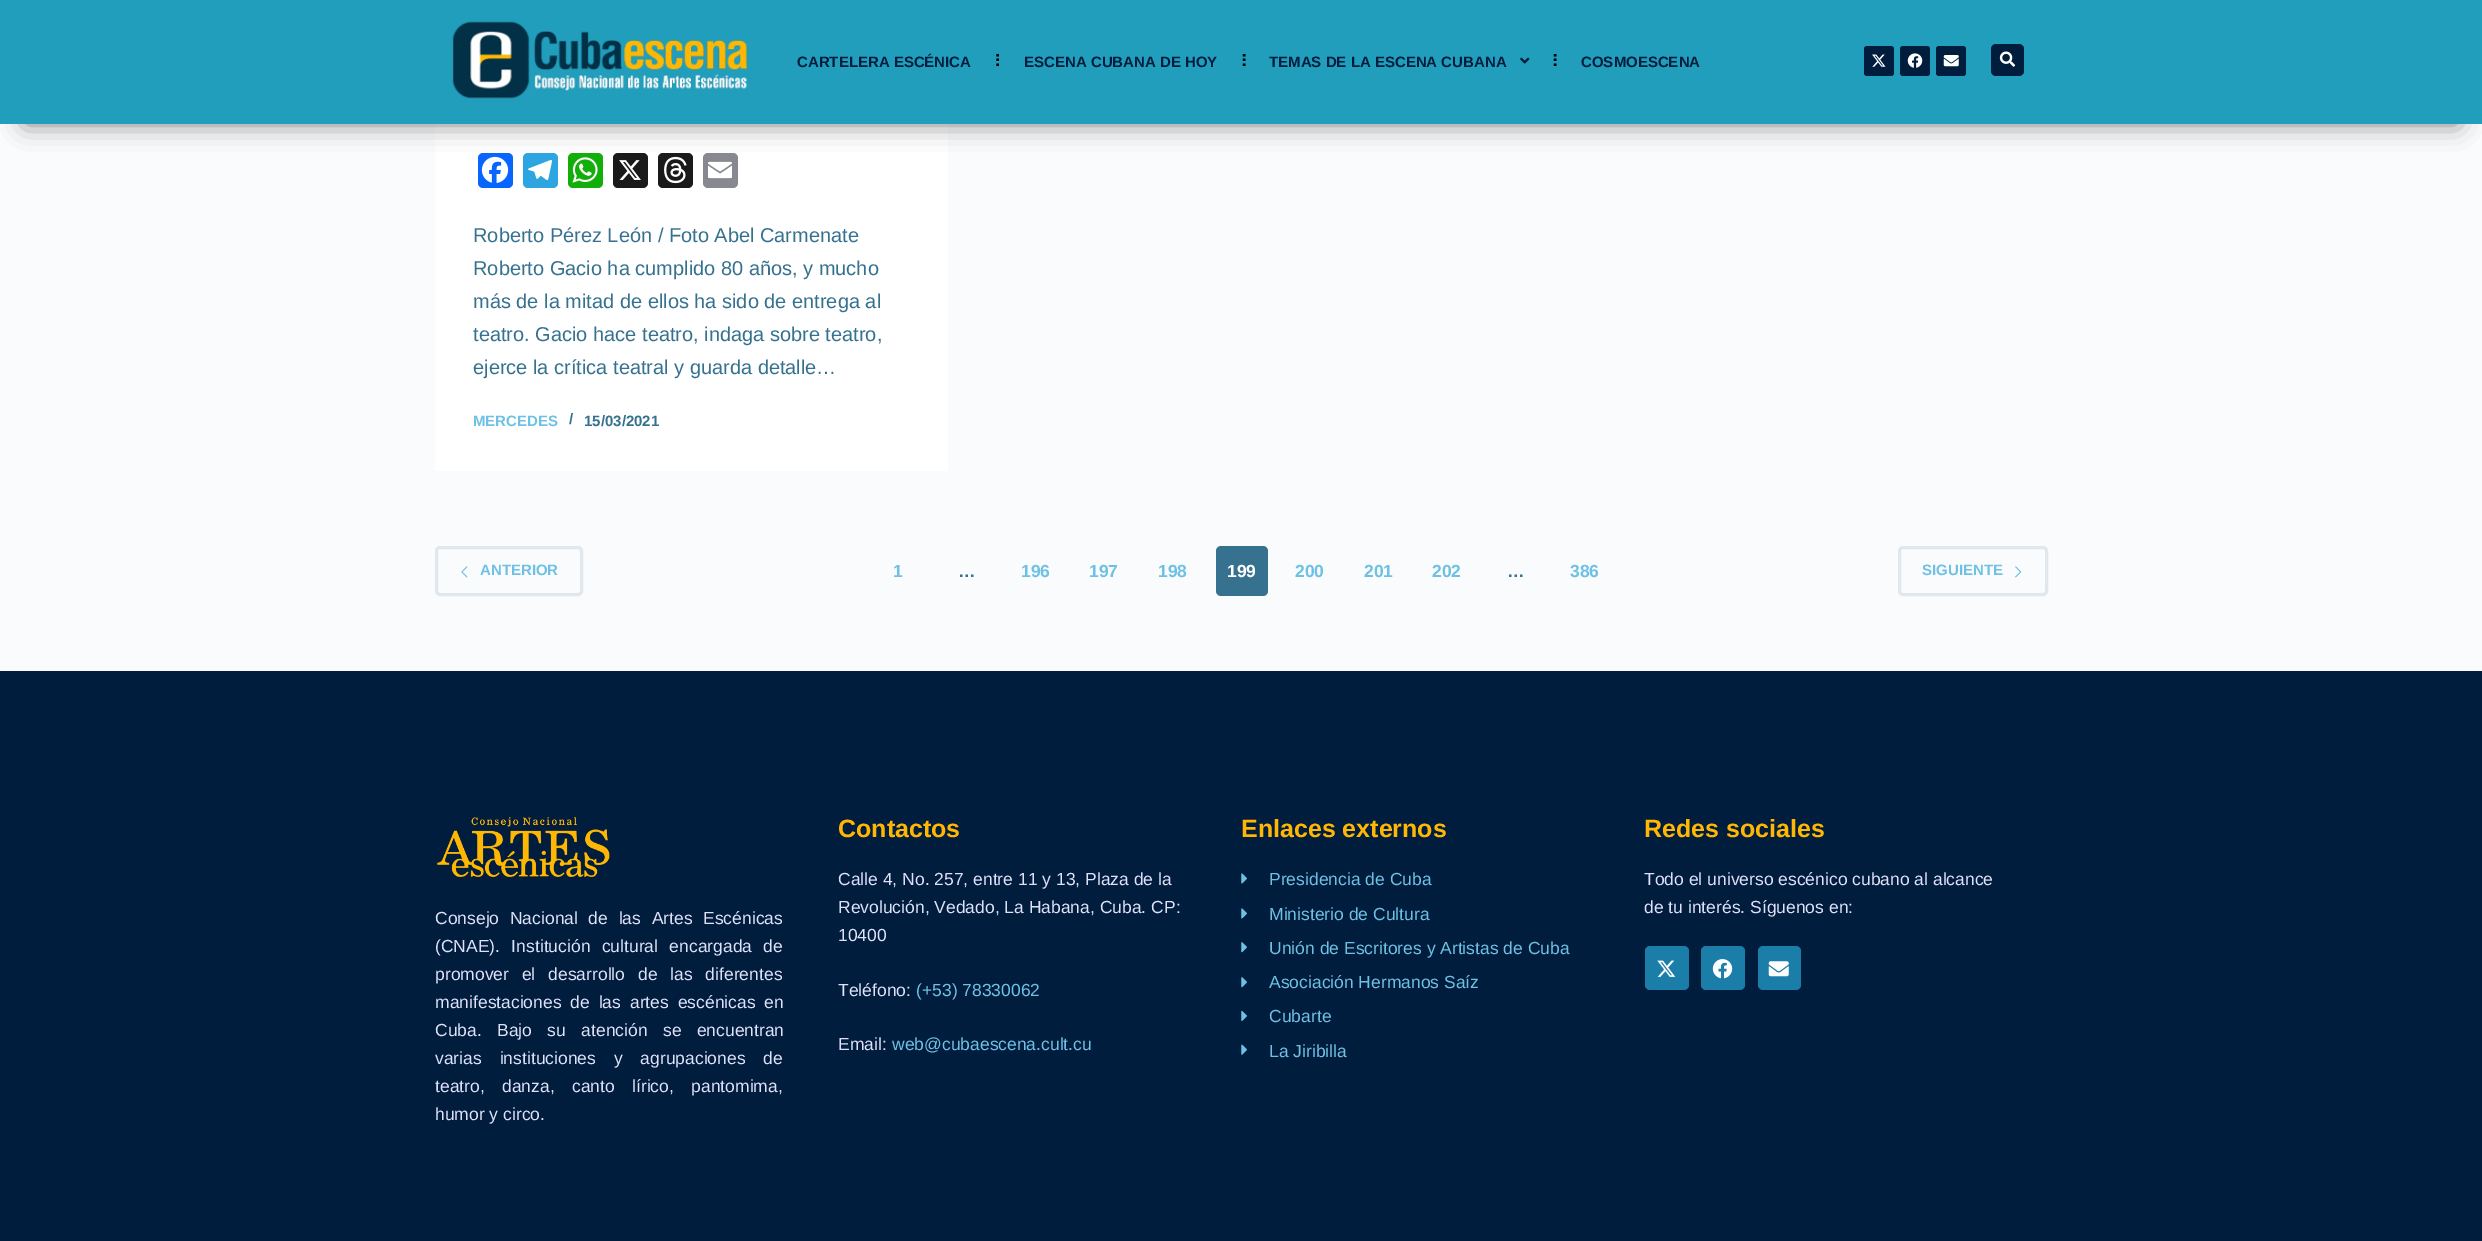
%!PS-Adobe-3.0
%%BoundingBox: 0 0 2482 1241
%%LanguageLevel: 3
%%Pages: 1
%%EndComments
%%BeginProlog
/setink { 3 { 255 div 3 1 roll } repeat setrgbcolor } def
/usefont { [ exch dup neg 0 0 3 -1 roll 0 0 ] selectfont } def
/drawtext { setink usefont moveto show } def
/fillbox { setink rectfill } def
/setalpha { dup .setfillconstantalpha .setstrokeconstantalpha } def
/rrect { 5 dict begin { /r /h /w /y /x } { exch def } forall
  x r add y moveto x w add y 2 copy h add r arct x w add y h add x 1 index r arct
  x y h add x y r arct x y 2 copy exch w add exch r arct closepath end } def
/softshadow { 12 dict begin { /a /b /q /h /w /y /x } { exch def } forall gsave /was 0 def
  9 -2 -9 { dup b mul 4 div /e exch def 1 sub .425 mul 2.718 exch exp 1 add a .99 .min exch div /now exch def
    1 1 now sub 1 was sub div sub setalpha /was now def
    w h .min e 2 mul add 0 gt { x e sub y e sub w e 2 mul add h e 2 mul add
      q e add b .6 mul add w h .min 2 div e add .min 0 .max rrect fill } if } for grestore end } def
/drawimage { 5 dict begin { /h /w /y /x /name } { exch def } forall
  gsave x y translate w h scale
  w h 8 [w 0 0 h 0 0] name (r) file false 3 colorimage grestore end } def
%%EndProlog
%%BeginSetup
<< /PageSize [2482 1241] /PageUsesTransparency true >> setpagedevice
%%EndSetup
%%Page: 1 1
0 .pushpdf14devicefilter
0 1241 translate 1 -1 scale
4 setmiterlimit
0 0 2482 1241 250 251 252 fillbox
435 124 513 347 255 255 255 fillbox
8 102 255 setink
478 153 35 35 5 rrect fill
(assets/img7.rgb) 481 156 28 27 drawimage
44 165 224 setink
523 153 35 35 5 rrect fill
(assets/img8.rgb) 528 160 24 21 drawimage
18 175 10 setink
568 153 35 35 5 rrect fill
(assets/img9.rgb) 572 157 26 26 drawimage
26 26 26 setink
613 153 35 35 5 rrect fill
(assets/img10.rgb) 619 160 22 20 drawimage
658 153 35 35 5 rrect fill
(assets/img11.rgb) 664 156 23 28 drawimage
136 137 144 setink
703 153 35 35 5 rrect fill
(assets/img12.rgb) 708 161 24 18 drawimage
0 0 0 setink
25 50 2433 74 0 12.5 0.5 softshadow
0 0 2482 124 33 158 188 fillbox
(assets/img1.rgb) 452 21 296 78 drawimage
(CARTELERA ESCÉNICA) 797 67 /LiberationSans-Bold 15 0 29 61 drawtext
0 0 0 setink
2.5 setlinewidth
997.5 54 moveto 997.5 56.5 lineto 997.5 58.5 moveto 997.5 61 lineto 997.5 63.5 moveto 997.5 66 lineto stroke
(ESCENA CUBANA DE HOY) 1024 67 /LiberationSans-Bold 15 0 29 61 drawtext
0 0 0 setink
1244 54 moveto 1244 56.5 lineto 1244 58.5 moveto 1244 61 lineto 1244 63.5 moveto 1244 66 lineto stroke
(TEMAS DE LA ESCENA CUBANA) 1269 67 /LiberationSans-Bold 15 0 29 61 drawtext
(assets/img2.rgb) 1520 57 10 7 drawimage
0 0 0 setink
1555 54 moveto 1555 56.5 lineto 1555 58.5 moveto 1555 61 lineto 1555 63.5 moveto 1555 66 lineto stroke
(COSMOESCENA) 1581 67 /LiberationSans-Bold 15 0 29 61 drawtext
1864 46 30 30 3 rrect fill
(assets/img3.rgb) 1872 54 14 13 drawimage
1900 46 30 30 3 rrect fill
(assets/img4.rgb) 1907 53 16 15 drawimage
1936 46 30 30 3 rrect fill
(assets/img5.rgb) 1943 55 16 12 drawimage
1991 44 33 32 5 rrect fill
(assets/img6.rgb) 1999 51 17 16 drawimage
(Roberto Pérez León / Foto Abel Carmenate) 473 242 /LiberationSans-Regular 20 54 114 143 drawtext
(Roberto Gacio ha cumplido 80 años, y mucho) 473 275 /LiberationSans-Regular 20 54 114 143 drawtext
(más de la mitad de ellos ha sido de entrega al) 473 308 /LiberationSans-Regular 20 54 114 143 drawtext
(teatro. Gacio hace teatro, indaga sobre teatro,) 473 341 /LiberationSans-Regular 20 54 114 143 drawtext
(ejerce la crítica teatral y guarda detalle…) 473 374 /LiberationSans-Regular 20 54 114 143 drawtext
(MERCEDES) 473 426 /LiberationSans-Bold 15 110 193 228 drawtext
(/) 569 424 /LiberationSans-Bold 15 54 114 143 drawtext
(15/03/2021) 584 426 /LiberationSans-Bold 15 54 114 143 drawtext
225 232 237 setink
3 setlinewidth
436.5 547.5 145 47 3.5 rrect stroke
(assets/img13.rgb) 461 566 7 12 drawimage
(ANTERIOR) 480 575 /LiberationSans-Bold 15 110 193 228 drawtext
(1) 893 577 /LiberationSans-Bold 17.5 110 193 228 drawtext
(…) 958 577 /LiberationSans-Bold 17.5 54 114 143 drawtext
(196) 1021 577 /LiberationSans-Bold 17.5 110 193 228 drawtext
(197) 1089 577 /LiberationSans-Bold 17.5 110 193 228 drawtext
(198) 1158 577 /LiberationSans-Bold 17.5 110 193 228 drawtext
54 114 143 setink
1216 546 52 50 5 rrect fill
(199) 1227 577 /LiberationSans-Bold 17.5 255 255 255 drawtext
(200) 1295 577 /LiberationSans-Bold 17.5 110 193 228 drawtext
(201) 1364 577 /LiberationSans-Bold 17.5 110 193 228 drawtext
(202) 1432 577 /LiberationSans-Bold 17.5 110 193 228 drawtext
(…) 1507 577 /LiberationSans-Bold 17.5 54 114 143 drawtext
(386) 1570 577 /LiberationSans-Bold 17.5 110 193 228 drawtext
225 232 237 setink
1899.5 547.5 147 47 3.5 rrect stroke
(SIGUIENTE) 1922 575 /LiberationSans-Bold 15 110 193 228 drawtext
(assets/img14.rgb) 2015 566 7 12 drawimage
0 671 2482 570 0 29 61 fillbox
(assets/img15.rgb) 437 817 173 60 drawimage
/LiberationSans-Regular 17.5 usefont
222 225 248 setink
435 924 moveto 5.75 0 32 (Consejo Nacional de las Artes Escénicas) widthshow
435 952 moveto 6.5 0 32 (\(CNAE\). Institución cultural encargada de) widthshow
435 980 moveto 8 0 32 (promover el desarrollo de las diferentes) widthshow
435 1008 moveto 4 0 32 (manifestaciones de las artes escénicas en) widthshow
435 1036 moveto 10.5 0 32 (Cuba. Bajo su atención se encuentran) widthshow
435 1064 moveto 13 0 32 (varias instituciones y agrupaciones de) widthshow
435 1092 moveto 12.5 0 32 (teatro, danza, canto lírico, pantomima,) widthshow
(humor y circo.) 435 1120 /LiberationSans-Regular 17.5 222 225 248 drawtext
(Contactos) 838 837 /LiberationSans-Bold 25 255 183 3 drawtext
(Calle 4, No. 257, entre 11 y 13, Plaza de la) 838 885 /LiberationSans-Regular 17.5 222 225 248 drawtext
(Revolución, Vedado, La Habana, Cuba. CP:) 838 913 /LiberationSans-Regular 17.5 222 225 248 drawtext
(10400) 838 941 /LiberationSans-Regular 17.5 222 225 248 drawtext
(Teléfono:) 838 996 /LiberationSans-Regular 17.5 222 225 248 drawtext
(\(+53\) 78330062) 916 996 /LiberationSans-Regular 17.5 110 193 228 drawtext
(Email:) 838 1050 /LiberationSans-Regular 17.5 222 225 248 drawtext
(web@cubaescena.cult.cu) 892 1050 /LiberationSans-Regular 17.5 110 193 228 drawtext
(Enlaces externos) 1241 837 /LiberationSans-Bold 25 255 183 3 drawtext
(assets/img16.rgb) 1241 873 6 11 drawimage
(Presidencia de Cuba) 1269 885 /LiberationSans-Regular 17.5 110 193 228 drawtext
(assets/img16.rgb) 1241 908 6 11 drawimage
(Ministerio de Cultura) 1269 920 /LiberationSans-Regular 17.5 110 193 228 drawtext
(assets/img17.rgb) 1241 942 6 11 drawimage
(Unión de Escritores y Artistas de Cuba) 1269 954 /LiberationSans-Regular 17.5 110 193 228 drawtext
(assets/img17.rgb) 1241 977 6 11 drawimage
(Asociación Hermanos Saíz) 1269 988 /LiberationSans-Regular 17.5 110 193 228 drawtext
(assets/img18.rgb) 1241 1010 6 11 drawimage
(Cubarte) 1269 1022 /LiberationSans-Regular 17.5 110 193 228 drawtext
(assets/img19.rgb) 1241 1044 6 11 drawimage
(La Jiribilla) 1269 1057 /LiberationSans-Regular 17.5 110 193 228 drawtext
(Redes sociales) 1644 837 /LiberationSans-Bold 25 255 183 3 drawtext
(Todo el universo escénico cubano al alcance) 1644 885 /LiberationSans-Regular 17.5 222 225 248 drawtext
(de tu interés. Síguenos en:) 1644 913 /LiberationSans-Regular 17.5 222 225 248 drawtext
26 126 168 setink
1645 946 44 44 5 rrect fill
(assets/img20.rgb) 1657 960 19 17 drawimage
1701 946 44 44 5 rrect fill
(assets/img21.rgb) 1712 959 21 20 drawimage
1758 946 43 44 5 rrect fill
(assets/img22.rgb) 1768 961 21 16 drawimage
.poppdf14devicefilter showpage
%%EOF
